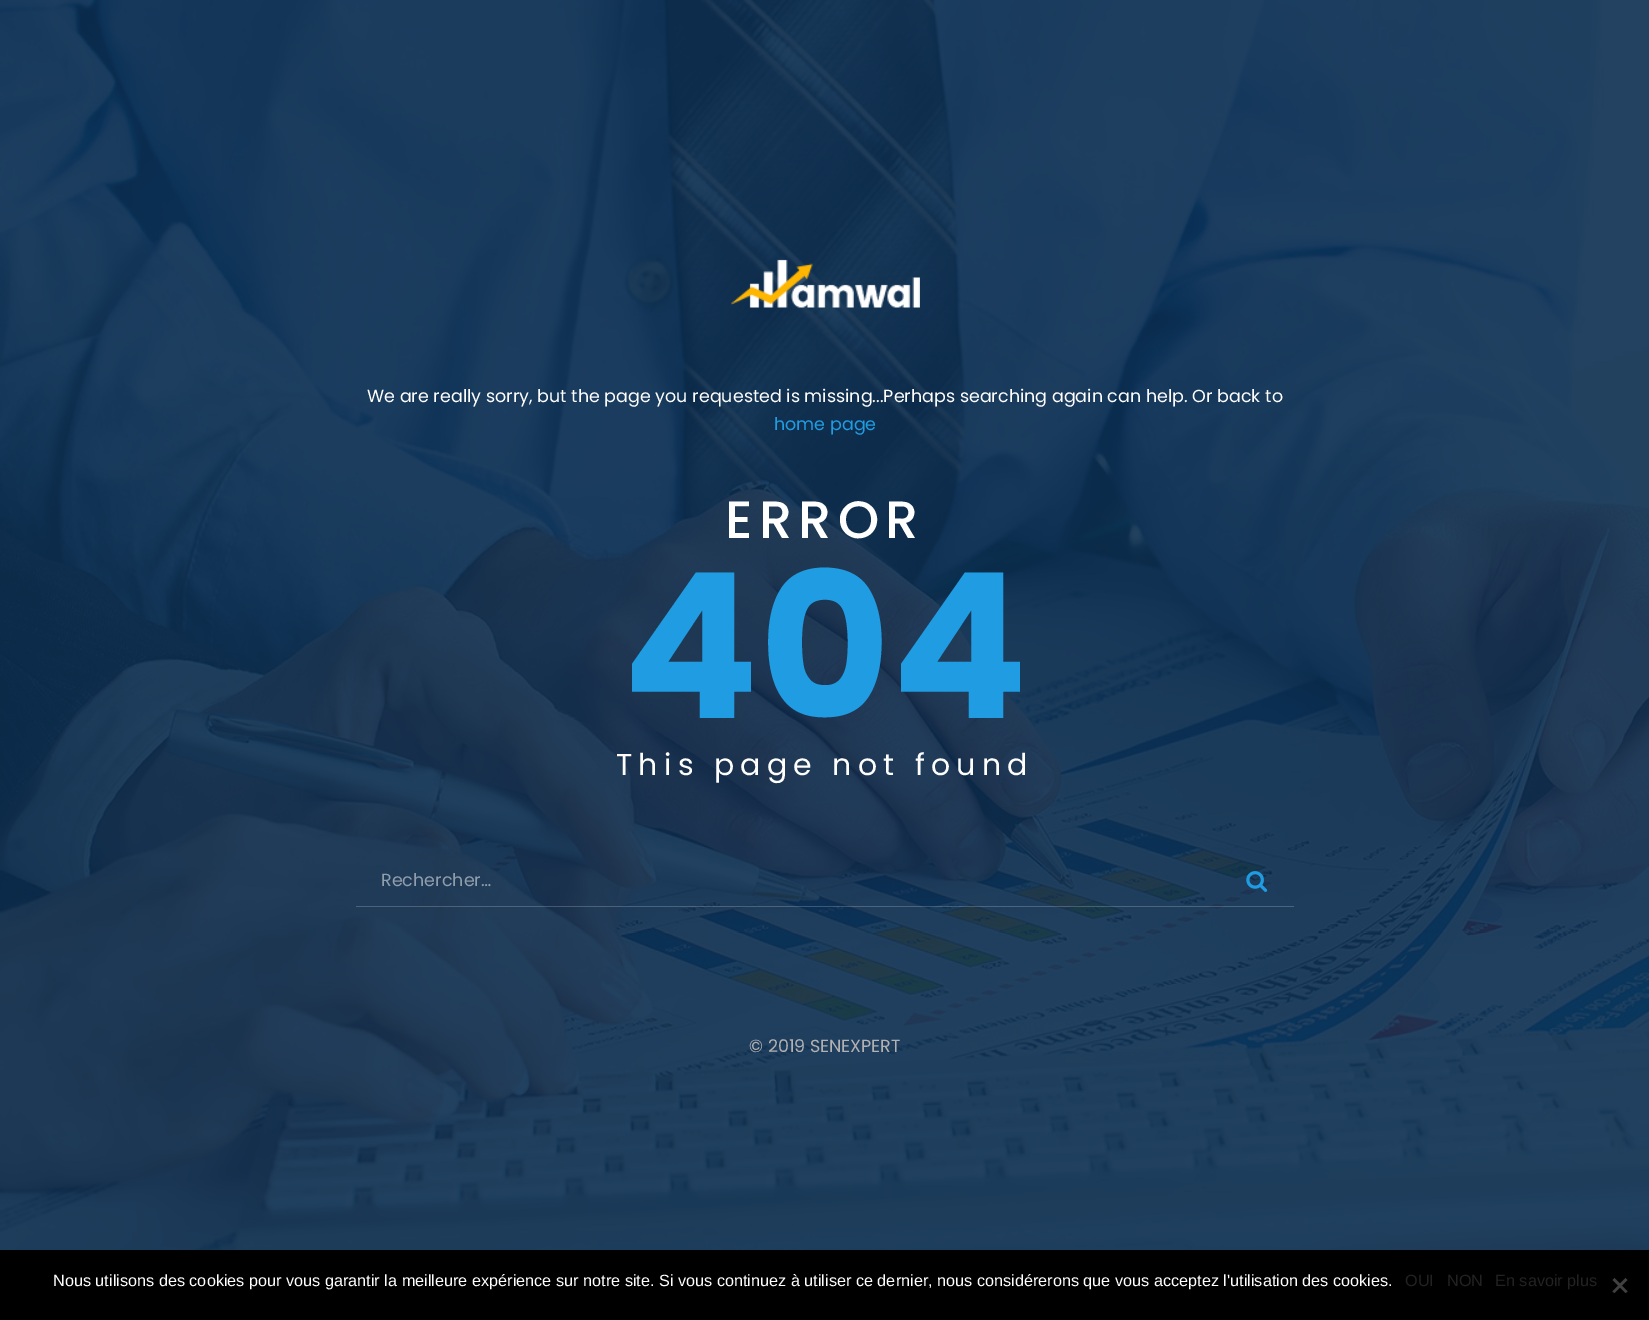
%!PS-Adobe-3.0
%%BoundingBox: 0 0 1649 1320
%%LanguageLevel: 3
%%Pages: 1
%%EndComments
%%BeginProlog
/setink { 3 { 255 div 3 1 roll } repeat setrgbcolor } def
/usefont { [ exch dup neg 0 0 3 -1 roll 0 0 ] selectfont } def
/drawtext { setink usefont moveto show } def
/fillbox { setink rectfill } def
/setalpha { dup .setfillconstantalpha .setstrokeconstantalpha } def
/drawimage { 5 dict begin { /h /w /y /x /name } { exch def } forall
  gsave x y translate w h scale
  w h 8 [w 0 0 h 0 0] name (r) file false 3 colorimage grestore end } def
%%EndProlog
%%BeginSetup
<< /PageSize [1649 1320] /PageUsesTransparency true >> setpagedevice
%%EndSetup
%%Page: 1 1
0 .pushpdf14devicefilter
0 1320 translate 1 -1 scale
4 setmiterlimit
0 0 1649 1320 255 255 255 fillbox
(assets/img1.rgb) 0 0 1649 1250 drawimage
(assets/img2.rgb) 731 259 189 49 drawimage
(We are really sorry, but the page you requested is missing...Perhaps searching again can help. Or back to) 367 402 /Poppins-Regular 17.5 255 255 255 drawtext
(home page) 774 430 /Poppins-Regular 17.5 32 157 226 drawtext
/Poppins-Medium 52.5 usefont
255 255 255 setink
725 538 moveto 6.25 0 (ERROR) ashow
(404) 622 718 /Poppins-Bold 202.5 32 157 226 drawtext
/Poppins-Regular 30 usefont
255 255 255 setink
616 775 moveto 6.25 0 (This page not found) ashow
0.2 setalpha
356 906 938 1 255 255 255 fillbox
1 setalpha
(Rechercher…) 381 886 /Poppins-Regular 17.5 144 157 171 drawtext
(assets/img3.rgb) 1246 871 22 21 drawimage
(© 2019 SENEXPERT) 749 1052 /Poppins-Regular 17.5 178 178 178 drawtext
0 1250 1649 70 0 0 0 fillbox
(Nous utilisons des cookies pour vous garantir la meilleure expérience sur notre site. Si vous continuez à utiliser ce dernier, nous considérerons que vous acceptez l'utilisation des cookies.) 53 1286 /LiberationSans-Regular 16.25 255 255 255 drawtext
(OUI) 1405 1286 /LiberationSans-Regular 16.25 34 34 34 drawtext
(NON) 1447 1286 /LiberationSans-Regular 16.25 34 34 34 drawtext
(En savoir plus) 1495 1286 /LiberationSans-Regular 16.25 34 34 34 drawtext
64 64 64 setink
1625.5 1278 moveto 1627.5 1280 lineto 1614.5 1293 lineto 1612.5 1291.5 lineto closepath fill
1612.5 1280 moveto 1614.5 1278 lineto 1627.5 1291.5 lineto 1625.5 1293 lineto closepath fill
.poppdf14devicefilter showpage
%%EOF
